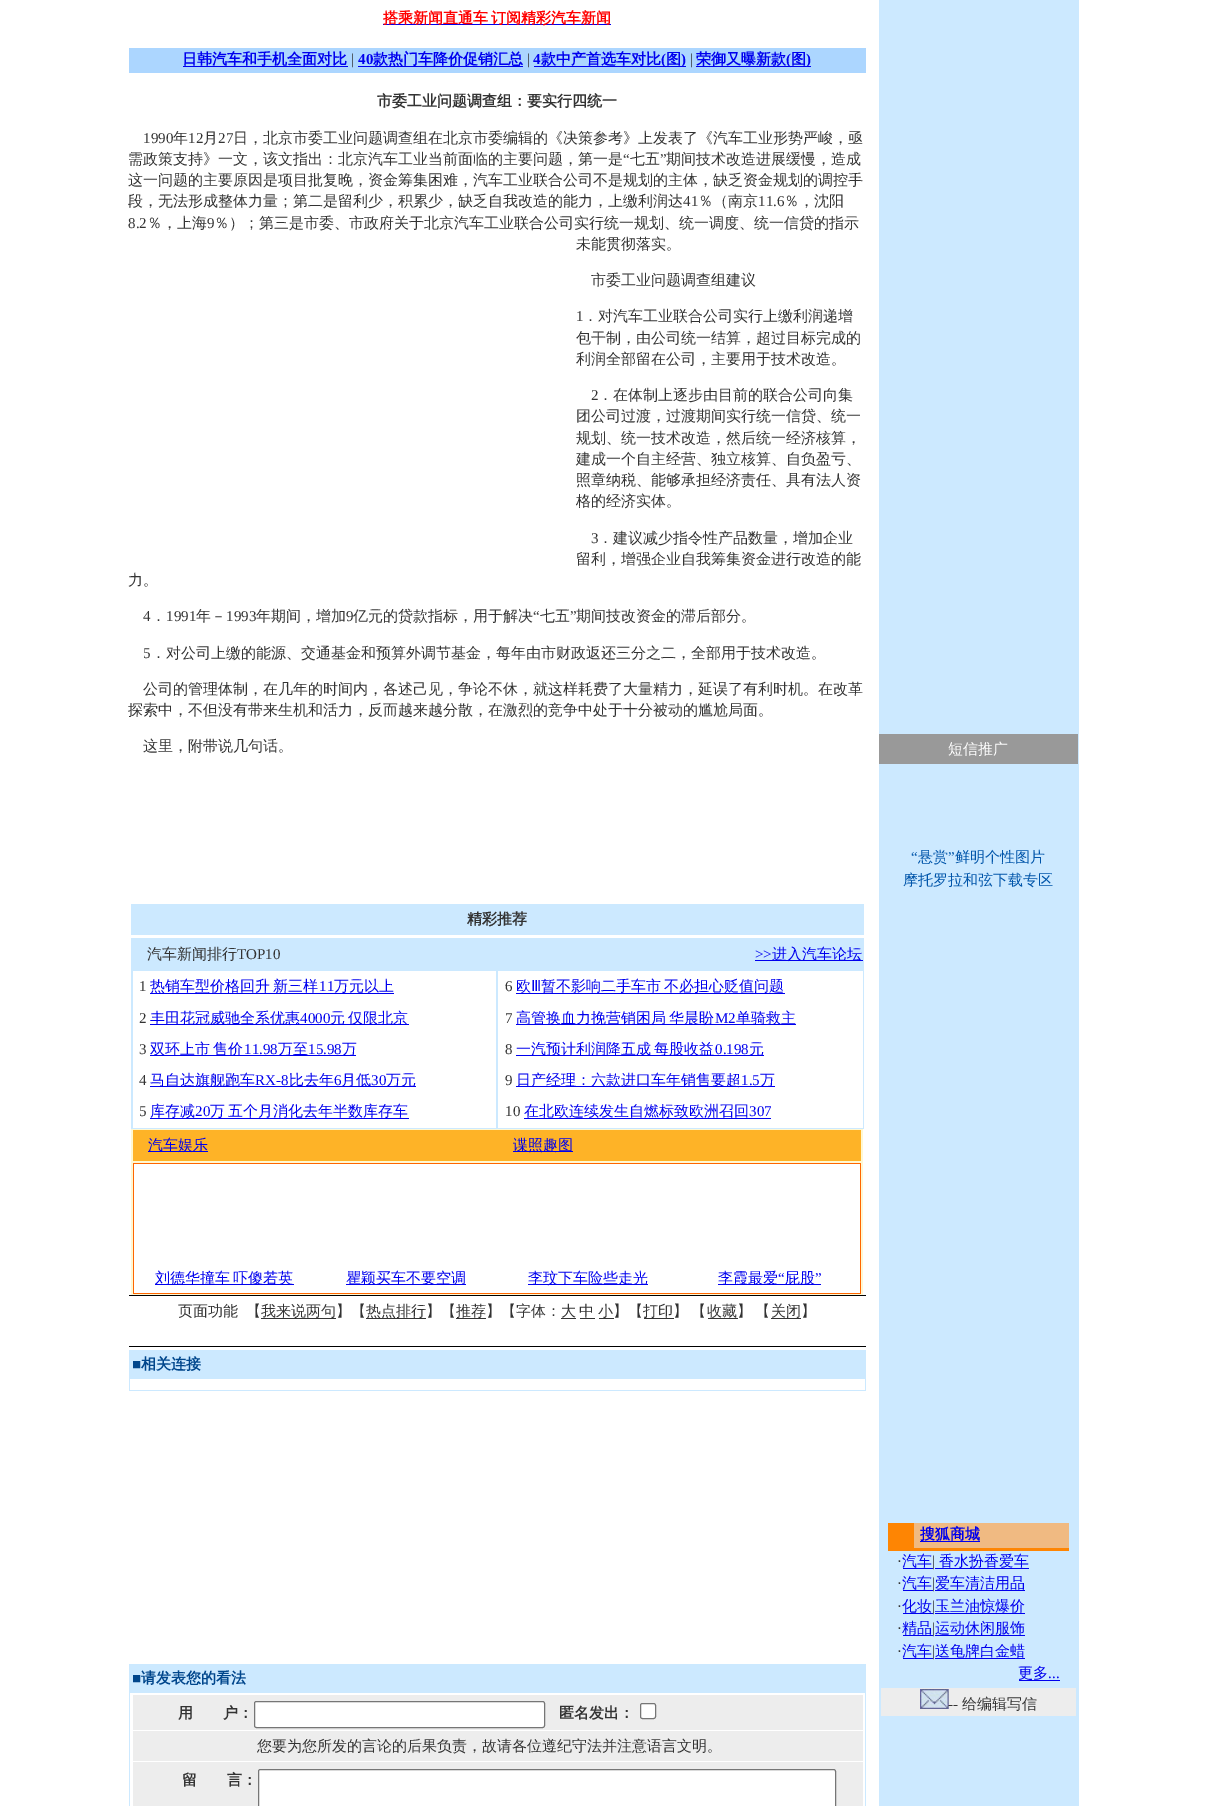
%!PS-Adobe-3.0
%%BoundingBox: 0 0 1206 1806
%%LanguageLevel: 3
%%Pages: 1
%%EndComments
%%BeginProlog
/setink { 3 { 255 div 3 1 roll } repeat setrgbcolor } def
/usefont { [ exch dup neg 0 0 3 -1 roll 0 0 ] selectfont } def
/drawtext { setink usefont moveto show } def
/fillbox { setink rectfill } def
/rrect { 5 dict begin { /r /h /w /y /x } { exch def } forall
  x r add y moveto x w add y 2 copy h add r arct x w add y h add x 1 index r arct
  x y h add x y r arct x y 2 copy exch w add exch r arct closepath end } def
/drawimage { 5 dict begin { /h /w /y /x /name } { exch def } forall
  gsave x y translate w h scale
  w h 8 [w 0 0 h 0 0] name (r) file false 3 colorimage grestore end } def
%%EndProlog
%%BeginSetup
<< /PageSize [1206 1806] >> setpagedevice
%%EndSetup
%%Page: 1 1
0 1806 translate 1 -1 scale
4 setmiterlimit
0 0 1206 1806 255 255 255 fillbox
383 24 228 1 0 0 238 fillbox
(搭乘新闻直通车) 383 23 /WenQuanYiZenHei-Bold 15 255 0 0 drawtext
(订阅精彩汽车新闻) 491 23 /WenQuanYiZenHei-Bold 15 255 0 0 drawtext
129 48 737 25 172 214 255 fillbox
(日韩汽车和手机全面对比) 182 64 /WenQuanYiZenHei-Bold 15 0 0 238 drawtext
183 66 165 1 0 0 238 fillbox
(|) 351 64 /LiberationSerif-Regular 15 51 51 51 drawtext
(40) 358 64 /LiberationSerif-Bold 15 0 0 238 drawtext
358 66 165 1 0 0 238 fillbox
(款热门车降价促销汇总) 373 64 /WenQuanYiZenHei-Bold 15 0 0 238 drawtext
(|) 527 64 /LiberationSerif-Regular 15 51 51 51 drawtext
(4) 533 64 /LiberationSerif-Bold 15 0 0 238 drawtext
(款中产首选车对比) 541 64 /WenQuanYiZenHei-Bold 15 0 0 238 drawtext
534 66 152 1 0 0 238 fillbox
(\() 661 64 /LiberationSerif-Bold 15 0 0 238 drawtext
(图) 666 64 /WenQuanYiZenHei-Bold 15 0 0 238 drawtext
(\)) 681 64 /LiberationSerif-Bold 15 0 0 238 drawtext
(|) 690 64 /LiberationSerif-Regular 15 51 51 51 drawtext
(荣御又曝新款) 696 64 /WenQuanYiZenHei-Bold 15 0 0 238 drawtext
696 66 115 1 0 0 238 fillbox
(\() 786 64 /LiberationSerif-Bold 15 0 0 238 drawtext
(图) 791 64 /WenQuanYiZenHei-Bold 15 0 0 238 drawtext
(\)) 806 64 /LiberationSerif-Bold 15 0 0 238 drawtext
(市委工业问题调查组：要实行四统一) 377 106 /WenQuanYiZenHei-Bold 15 51 51 51 drawtext
(1990) 143 143 /LiberationSerif-Regular 15 51 51 51 drawtext
(年) 173 143 /WenQuanYiZenHei-Medium 15 51 51 51 drawtext
(12) 188 143 /LiberationSerif-Regular 15 51 51 51 drawtext
(月) 203 143 /WenQuanYiZenHei-Medium 15 51 51 51 drawtext
(27) 218 143 /LiberationSerif-Regular 15 51 51 51 drawtext
(日，北京市委工业问题调查组在北京市委编辑的《决策参考》上发表了《汽车工业形势严峻，亟) 233 143 /WenQuanYiZenHei-Medium 15 51 51 51 drawtext
(需政策支持》一文，该文指出：北京汽车工业当前面临的主要问题，第一是) 128 164 /WenQuanYiZenHei-Medium 15 51 51 51 drawtext
(“) 623 164 /LiberationSerif-Regular 15 51 51 51 drawtext
(七五) 630 164 /WenQuanYiZenHei-Medium 15 51 51 51 drawtext
(”) 660 164 /LiberationSerif-Regular 15 51 51 51 drawtext
(期间技术改造进展缓慢，造成) 666 164 /WenQuanYiZenHei-Medium 15 51 51 51 drawtext
(这一问题的主要原因是项目批复晚，资金筹集困难，汽车工业联合公司不是规划的主体，缺乏资金规划的调控手) 128 185 /WenQuanYiZenHei-Medium 15 51 51 51 drawtext
(段，无法形成整体力量；第二是留利少，积累少，缺乏自我改造的能力，上缴利润达) 128 206 /WenQuanYiZenHei-Medium 15 51 51 51 drawtext
(41) 683 206 /LiberationSerif-Regular 15 51 51 51 drawtext
(％（南京) 698 206 /WenQuanYiZenHei-Medium 15 51 51 51 drawtext
(11.6) 758 206 /LiberationSerif-Regular 15 51 51 51 drawtext
(％，沈阳) 784 206 /WenQuanYiZenHei-Medium 15 51 51 51 drawtext
(8.2) 128 228 /LiberationSerif-Regular 15 51 51 51 drawtext
(％，上海) 147 228 /WenQuanYiZenHei-Medium 15 51 51 51 drawtext
(9) 207 228 /LiberationSerif-Regular 15 51 51 51 drawtext
(％）；第三是市委、市政府关于北京汽车工业联合公司实行统一规划、统一调度、统一信贷的指示) 214 228 /WenQuanYiZenHei-Medium 15 51 51 51 drawtext
(未能贯彻落实。) 576 249 /WenQuanYiZenHei-Medium 15 51 51 51 drawtext
(市委工业问题调查组建议) 591 285 /WenQuanYiZenHei-Medium 15 51 51 51 drawtext
(1) 576 321 /LiberationSerif-Regular 15 51 51 51 drawtext
(．对汽车工业联合公司实行上缴利润递增) 583 321 /WenQuanYiZenHei-Medium 15 51 51 51 drawtext
(包干制，由公司统一结算，超过目标完成的) 576 343 /WenQuanYiZenHei-Medium 15 51 51 51 drawtext
(利润全部留在公司，主要用于技术改造。) 576 364 /WenQuanYiZenHei-Medium 15 51 51 51 drawtext
(2) 591 400 /LiberationSerif-Regular 15 51 51 51 drawtext
(．在体制上逐步由目前的联合公司向集) 598 400 /WenQuanYiZenHei-Medium 15 51 51 51 drawtext
(团公司过渡，过渡期间实行统一信贷、统一) 576 421 /WenQuanYiZenHei-Medium 15 51 51 51 drawtext
(规划、统一技术改造，然后统一经济核算，) 576 443 /WenQuanYiZenHei-Medium 15 51 51 51 drawtext
(建成一个自主经营、独立核算、自负盈亏、) 576 464 /WenQuanYiZenHei-Medium 15 51 51 51 drawtext
(照章纳税、能够承担经济责任、具有法人资) 576 485 /WenQuanYiZenHei-Medium 15 51 51 51 drawtext
(格的经济实体。) 576 506 /WenQuanYiZenHei-Medium 15 51 51 51 drawtext
(3) 591 543 /LiberationSerif-Regular 15 51 51 51 drawtext
(．建议减少指令性产品数量，增加企业) 598 543 /WenQuanYiZenHei-Medium 15 51 51 51 drawtext
(留利，增强企业自我筹集资金进行改造的能) 576 564 /WenQuanYiZenHei-Medium 15 51 51 51 drawtext
(力。) 128 585 /WenQuanYiZenHei-Medium 15 51 51 51 drawtext
(4) 143 621 /LiberationSerif-Regular 15 51 51 51 drawtext
(1991) 166 621 /LiberationSerif-Regular 15 51 51 51 drawtext
(年－) 196 621 /WenQuanYiZenHei-Medium 15 51 51 51 drawtext
(1993) 226 621 /LiberationSerif-Regular 15 51 51 51 drawtext
(年期间，增加) 256 621 /WenQuanYiZenHei-Medium 15 51 51 51 drawtext
(9) 346 621 /LiberationSerif-Regular 15 51 51 51 drawtext
(亿元的贷款指标，用于解决) 353 621 /WenQuanYiZenHei-Medium 15 51 51 51 drawtext
(“) 533 621 /LiberationSerif-Regular 15 51 51 51 drawtext
(七五) 540 621 /WenQuanYiZenHei-Medium 15 51 51 51 drawtext
(”) 570 621 /LiberationSerif-Regular 15 51 51 51 drawtext
(期间技改资金的滞后部分。) 576 621 /WenQuanYiZenHei-Medium 15 51 51 51 drawtext
(．) 151 621 /WenQuanYiZenHei-Medium 15 51 51 51 drawtext
(5) 143 658 /LiberationSerif-Regular 15 51 51 51 drawtext
(．对公司上缴的能源、交通基金和预算外调节基金，每年由市财政返还三分之二，全部用于技术改造。) 151 658 /WenQuanYiZenHei-Medium 15 51 51 51 drawtext
(公司的管理体制，在几年的时间内，各述己见，争论不休，就这样耗费了大量精力，延误了有利时机。在改革) 143 694 /WenQuanYiZenHei-Medium 15 51 51 51 drawtext
(探索中，不但没有带来生机和活力，反而越来越分散，在激烈的竞争中处于十分被动的尴尬局面。) 128 715 /WenQuanYiZenHei-Medium 15 51 51 51 drawtext
(这里，附带说几句话。) 143 751 /WenQuanYiZenHei-Medium 15 51 51 51 drawtext
131 904 733 31 204 233 255 fillbox
(精彩推荐) 467 924 /WenQuanYiZenHei-Bold 15 51 51 51 drawtext
131 938 733 191 204 233 255 fillbox
(汽车新闻排行) 147 959 /WenQuanYiZenHei-Medium 15 51 51 51 drawtext
(TOP10) 237 959 /LiberationSerif-Regular 15 51 51 51 drawtext
(>>) 755 959 /LiberationSerif-Regular 15 0 0 238 drawtext
755 960 108 1 0 0 238 fillbox
(进入汽车论坛) 772 959 /WenQuanYiZenHei-Medium 15 0 0 238 drawtext
133 971 363 157 255 255 255 fillbox
(1) 139 991 /LiberationSerif-Regular 15 51 51 51 drawtext
150 993 244 1 0 0 238 fillbox
/WenQuanYiZenHei-Medium 15 usefont
150 991 moveto -1 0 32 (热销车型价格回升 新三样) widthshow
(11) 319 991 /LiberationSerif-Regular 15 0 0 238 drawtext
(万元以上) 334 991 /WenQuanYiZenHei-Medium 15 0 0 238 drawtext
(2) 139 1023 /LiberationSerif-Regular 15 51 51 51 drawtext
150 1024 259 1 0 0 238 fillbox
(丰田花冠威驰全系优惠) 150 1023 /WenQuanYiZenHei-Medium 15 0 0 238 drawtext
(4000) 300 1023 /LiberationSerif-Regular 15 0 0 238 drawtext
/WenQuanYiZenHei-Medium 15 usefont
330 1023 moveto -1 0 32 (元 仅限北京) widthshow
(3) 139 1054 /LiberationSerif-Regular 15 51 51 51 drawtext
150 1055 206 1 0 0 238 fillbox
/WenQuanYiZenHei-Medium 15 usefont
150 1054 moveto -1 0 32 (双环上市 售价) widthshow
(11.98) 244 1054 /LiberationSerif-Regular 15 0 0 238 drawtext
(万至) 278 1054 /WenQuanYiZenHei-Medium 15 0 0 238 drawtext
(15.98) 308 1054 /LiberationSerif-Regular 15 0 0 238 drawtext
(万) 342 1054 /WenQuanYiZenHei-Medium 15 0 0 238 drawtext
(4) 139 1085 /LiberationSerif-Regular 15 51 51 51 drawtext
150 1086 266 1 0 0 238 fillbox
(马自达旗舰跑车) 150 1085 /WenQuanYiZenHei-Medium 15 0 0 238 drawtext
(RX-8) 255 1085 /LiberationSerif-Regular 15 0 0 238 drawtext
(比去年) 289 1085 /WenQuanYiZenHei-Medium 15 0 0 238 drawtext
(6) 334 1085 /LiberationSerif-Regular 15 0 0 238 drawtext
(月低) 341 1085 /WenQuanYiZenHei-Medium 15 0 0 238 drawtext
(30) 371 1085 /LiberationSerif-Regular 15 0 0 238 drawtext
(万元) 386 1085 /WenQuanYiZenHei-Medium 15 0 0 238 drawtext
(5) 139 1116 /LiberationSerif-Regular 15 51 51 51 drawtext
150 1118 259 1 0 0 238 fillbox
(库存减) 150 1116 /WenQuanYiZenHei-Medium 15 0 0 238 drawtext
(20) 195 1116 /LiberationSerif-Regular 15 0 0 238 drawtext
/WenQuanYiZenHei-Medium 15 usefont
210 1116 moveto -1 0 32 (万 五个月消化去年半数库存车) widthshow
498 971 365 157 255 255 255 fillbox
(6) 505 991 /LiberationSerif-Regular 15 51 51 51 drawtext
(欧) 516 991 /WenQuanYiZenHei-Medium 15 0 0 238 drawtext
516 993 269 1 0 0 238 fillbox
(Ⅲ) 531 991 /DejaVuSans-Regular 15 0 0 238 drawtext
/WenQuanYiZenHei-Medium 15 usefont
541 991 moveto -1 0 32 (暂不影响二手车市 不必担心贬值问题) widthshow
(7) 505 1023 /LiberationSerif-Regular 15 51 51 51 drawtext
516 1024 280 1 0 0 238 fillbox
/WenQuanYiZenHei-Medium 15 usefont
516 1023 moveto -1 0 32 (高管换血力挽营销困局 华晨盼) widthshow
(M2) 715 1023 /LiberationSerif-Regular 15 0 0 238 drawtext
(单骑救主) 736 1023 /WenQuanYiZenHei-Medium 15 0 0 238 drawtext
(8) 505 1054 /LiberationSerif-Regular 15 51 51 51 drawtext
516 1055 248 1 0 0 238 fillbox
/WenQuanYiZenHei-Medium 15 usefont
516 1054 moveto -1 0 32 (一汽预计利润降五成 每股收益) widthshow
(0.198) 715 1054 /LiberationSerif-Regular 15 0 0 238 drawtext
(元) 749 1054 /WenQuanYiZenHei-Medium 15 0 0 238 drawtext
(9) 505 1085 /LiberationSerif-Regular 15 51 51 51 drawtext
516 1086 259 1 0 0 238 fillbox
(日产经理：六款进口车年销售要超) 516 1085 /WenQuanYiZenHei-Medium 15 0 0 238 drawtext
(1.5) 741 1085 /LiberationSerif-Regular 15 0 0 238 drawtext
(万) 760 1085 /WenQuanYiZenHei-Medium 15 0 0 238 drawtext
(10) 505 1116 /LiberationSerif-Regular 15 51 51 51 drawtext
(在北欧连续发生自燃标致欧洲召回) 524 1116 /WenQuanYiZenHei-Medium 15 0 0 238 drawtext
(307) 749 1116 /LiberationSerif-Regular 15 0 0 238 drawtext
524 1118 247 1 0 0 238 fillbox
131 1129 732 166 255 248 210 fillbox
133 1130 728 31 254 179 39 fillbox
148 1151 60 1 0 0 238 fillbox
(汽车娱乐) 148 1150 /WenQuanYiZenHei-Medium 15 0 0 238 drawtext
513 1151 60 1 0 0 238 fillbox
(谍照趣图) 513 1150 /WenQuanYiZenHei-Medium 15 0 0 238 drawtext
133 1163 728 131 255 102 0 fillbox
134 1164 726 129 255 255 255 fillbox
155 1284 139 1 0 0 238 fillbox
155 1283 moveto -1 0 32 (刘德华撞车 吓傻若英) widthshow
346 1284 120 1 0 0 238 fillbox
(瞿颖买车不要空调) 346 1283 /WenQuanYiZenHei-Medium 15 0 0 238 drawtext
528 1284 120 1 0 0 238 fillbox
(李玟下车险些走光) 528 1283 /WenQuanYiZenHei-Medium 15 0 0 238 drawtext
718 1284 103 1 0 0 238 fillbox
(李霞最爱) 718 1283 /WenQuanYiZenHei-Medium 15 0 0 238 drawtext
(“) 778 1283 /LiberationSerif-Regular 15 0 0 238 drawtext
(屁股) 785 1283 /WenQuanYiZenHei-Medium 15 0 0 238 drawtext
(”) 815 1283 /LiberationSerif-Regular 15 0 0 238 drawtext
129 1295 737 1 0 0 0 fillbox
(页面功能) 178 1316 /WenQuanYiZenHei-Medium 15 51 51 51 drawtext
(【) 246 1316 /WenQuanYiZenHei-Medium 15 51 51 51 drawtext
261 1318 75 1 51 51 51 fillbox
(我来说两句】【) 261 1316 /WenQuanYiZenHei-Medium 15 51 51 51 drawtext
366 1318 60 1 51 51 51 fillbox
(热点排行】【) 366 1316 /WenQuanYiZenHei-Medium 15 51 51 51 drawtext
456 1318 30 1 51 51 51 fillbox
(推荐】【字体：大) 456 1316 /WenQuanYiZenHei-Medium 15 51 51 51 drawtext
(中) 579 1316 /WenQuanYiZenHei-Medium 15 51 51 51 drawtext
580 1318 15 1 51 51 51 fillbox
(小】【) 598 1316 /WenQuanYiZenHei-Medium 15 51 51 51 drawtext
599 1318 15 1 51 51 51 fillbox
644 1318 30 1 51 51 51 fillbox
(打印) 643 1316 /WenQuanYiZenHei-Medium 15 51 51 51 drawtext
673 1316 moveto -1 0 32 (】 【) widthshow
708 1318 30 1 51 51 51 fillbox
(收藏) 707 1316 /WenQuanYiZenHei-Medium 15 51 51 51 drawtext
737 1316 moveto -1 0 32 (】 【) widthshow
(关闭】) 771 1316 /WenQuanYiZenHei-Medium 15 51 51 51 drawtext
771 1318 30 1 51 51 51 fillbox
561 1318 15 1 51 51 51 fillbox
129 1346 737 1 0 0 0 fillbox
129 1350 737 41 204 233 255 fillbox
(■) 132 1369 /LiberationSerif-Regular 15 0 70 140 drawtext
(相关连接) 141 1369 /WenQuanYiZenHei-Bold 15 0 70 140 drawtext
130 1379 735 11 255 255 255 fillbox
129 1664 737 142 204 233 255 fillbox
(■) 132 1683 /LiberationSerif-Regular 15 0 70 140 drawtext
(请发表您的看法) 141 1683 /WenQuanYiZenHei-Bold 15 0 70 140 drawtext
130 1693 735 113 255 255 255 fillbox
133 1695 730 111 237 237 237 fillbox
(用　　户：) 178 1718 /WenQuanYiZenHei-Bold 15 51 51 51 drawtext
255 255 255 setink
254.5 1701.5 290 26 2 rrect gsave fill grestore
118 118 118 setink
stroke
(匿名发出：) 559 1718 /WenQuanYiZenHei-Bold 15 51 51 51 drawtext
255 255 255 setink
640.5 1703.5 15 15 2 rrect gsave fill grestore
118 118 118 setink
stroke
133 1730 730 1 255 255 255 fillbox
(您要为您所发的言论的后果负责，故请各位遵纪守法并注意语言文明。) 257 1751 /WenQuanYiZenHei-Medium 15 51 51 51 drawtext
133 1761 730 1 255 255 255 fillbox
(留　　言：) 182 1785 /WenQuanYiZenHei-Bold 15 51 51 51 drawtext
255 255 255 setink
258.5 1769.5 577 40 2 rrect gsave fill grestore
118 118 118 setink
stroke
879 0 200 1806 204 233 255 fillbox
879 734 199 30 153 153 153 fillbox
(短信推广) 948 754 /WenQuanYiZenHei-Medium 15 255 255 255 drawtext
(“) 911 862 /LiberationSerif-Regular 15 0 85 170 drawtext
(悬赏) 918 862 /WenQuanYiZenHei-Medium 15 0 85 170 drawtext
(”) 948 862 /LiberationSerif-Regular 15 0 85 170 drawtext
(鲜明个性图片) 955 862 /WenQuanYiZenHei-Medium 15 0 85 170 drawtext
(摩托罗拉和弦下载专区) 903 885 /WenQuanYiZenHei-Medium 15 0 85 170 drawtext
888 1523 26 25 254 133 3 fillbox
914 1523 155 25 240 186 130 fillbox
920 1541 60 1 0 0 238 fillbox
(搜狐商城) 920 1539 /WenQuanYiZenHei-Bold 15 0 0 238 drawtext
888 1548 181 3 254 133 3 fillbox
(·) 897 1566 /LiberationSerif-Regular 15 51 51 51 drawtext
(汽车) 902 1566 /WenQuanYiZenHei-Medium 15 0 0 238 drawtext
903 1568 30 1 0 0 238 fillbox
(|) 932 1566 /LiberationSerif-Regular 15 51 51 51 drawtext
935 1568 94 1 0 0 238 fillbox
(香水扮香爱车) 939 1566 /WenQuanYiZenHei-Medium 15 0 0 238 drawtext
(·) 897 1588 /LiberationSerif-Regular 15 51 51 51 drawtext
(汽车) 902 1588 /WenQuanYiZenHei-Medium 15 0 0 238 drawtext
903 1590 30 1 0 0 238 fillbox
(|) 932 1588 /LiberationSerif-Regular 15 51 51 51 drawtext
(爱车清洁用品) 935 1588 /WenQuanYiZenHei-Medium 15 0 0 238 drawtext
935 1590 90 1 0 0 238 fillbox
(·) 897 1611 /LiberationSerif-Regular 15 51 51 51 drawtext
903 1613 30 1 0 0 238 fillbox
(化妆) 902 1611 /WenQuanYiZenHei-Medium 15 0 0 238 drawtext
(|) 932 1611 /LiberationSerif-Regular 15 51 51 51 drawtext
(玉兰油惊爆价) 935 1611 /WenQuanYiZenHei-Medium 15 0 0 238 drawtext
935 1613 90 1 0 0 238 fillbox
(·) 897 1633 /LiberationSerif-Regular 15 51 51 51 drawtext
(精品) 902 1633 /WenQuanYiZenHei-Medium 15 0 0 238 drawtext
903 1635 30 1 0 0 238 fillbox
(|) 932 1633 /LiberationSerif-Regular 15 51 51 51 drawtext
935 1635 90 1 0 0 238 fillbox
(运动休闲服饰) 935 1633 /WenQuanYiZenHei-Medium 15 0 0 238 drawtext
(·) 897 1656 /LiberationSerif-Regular 15 51 51 51 drawtext
(汽车) 902 1656 /WenQuanYiZenHei-Medium 15 0 0 238 drawtext
903 1658 30 1 0 0 238 fillbox
(|) 932 1656 /LiberationSerif-Regular 15 51 51 51 drawtext
(送龟牌白金蜡) 935 1656 /WenQuanYiZenHei-Medium 15 0 0 238 drawtext
935 1658 90 1 0 0 238 fillbox
(更多) 1018 1678 /WenQuanYiZenHei-Medium 15 0 0 238 drawtext
(...) 1048 1678 /LiberationSerif-Regular 15 0 0 238 drawtext
1019 1680 41 1 0 0 238 fillbox
881 1688 195 28 237 237 237 fillbox
(assets/img1.rgb) 920 1689 29 20 drawimage
(--) 948 1709 /LiberationSerif-Regular 15 51 51 51 drawtext
(给编辑写信) 962 1709 /WenQuanYiZenHei-Medium 15 51 51 51 drawtext
showpage
%%EOF
